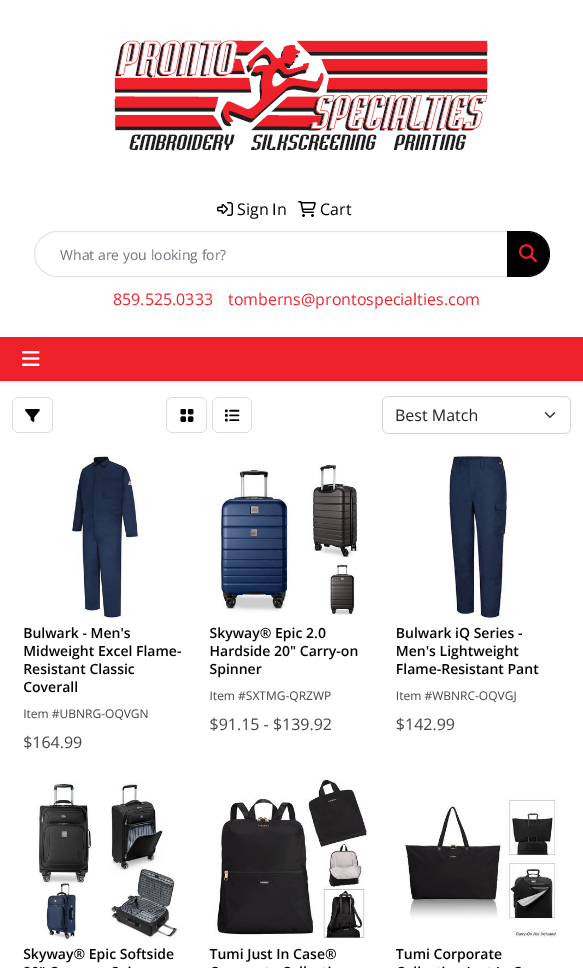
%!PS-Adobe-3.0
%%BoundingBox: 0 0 583 968
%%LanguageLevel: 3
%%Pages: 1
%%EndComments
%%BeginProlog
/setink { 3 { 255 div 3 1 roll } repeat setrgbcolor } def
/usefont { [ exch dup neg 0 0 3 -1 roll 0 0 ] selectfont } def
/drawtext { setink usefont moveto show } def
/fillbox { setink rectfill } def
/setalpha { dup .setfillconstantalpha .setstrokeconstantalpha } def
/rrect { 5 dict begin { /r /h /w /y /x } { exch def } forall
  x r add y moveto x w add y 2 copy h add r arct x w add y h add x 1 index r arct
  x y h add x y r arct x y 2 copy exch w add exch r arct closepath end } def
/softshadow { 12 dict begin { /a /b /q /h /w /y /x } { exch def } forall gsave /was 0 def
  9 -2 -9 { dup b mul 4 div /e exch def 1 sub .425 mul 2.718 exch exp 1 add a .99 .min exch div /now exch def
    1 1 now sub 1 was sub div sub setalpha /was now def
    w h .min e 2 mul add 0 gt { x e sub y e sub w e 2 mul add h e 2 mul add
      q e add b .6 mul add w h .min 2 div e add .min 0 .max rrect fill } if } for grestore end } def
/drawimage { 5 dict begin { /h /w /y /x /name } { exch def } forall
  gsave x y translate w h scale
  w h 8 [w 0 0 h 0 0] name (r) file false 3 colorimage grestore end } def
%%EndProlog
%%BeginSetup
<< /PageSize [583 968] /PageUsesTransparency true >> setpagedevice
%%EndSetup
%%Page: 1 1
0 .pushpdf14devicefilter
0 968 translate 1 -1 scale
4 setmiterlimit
0 0 583 968 255 255 255 fillbox
(assets/img1.rgb) 113 39 378 112 drawimage
(assets/img2.rgb) 217 202 16 14 drawimage
(Sign In) 237 215 /OpenSans-Regular 16 0 0 0 drawtext
(assets/img3.rgb) 298 201 18 16 drawimage
(Cart) 320 215 /OpenSans-Regular 16 0 0 0 drawtext
228 228 228 setink
57 231.5 moveto 507.5 231.5 lineto 507.5 276.5 lineto 57 276.5 lineto 44.5 276.5 34.5 266.5 34.5 254 curveto 34.5 241.5 44.5 231.5 57 231.5 curveto closepath stroke
(What are you looking for?) 60 260 /OpenSans-Regular 14 108 117 125 drawtext
0 0 0 setink
507 232 moveto 527 232 lineto 539 232 549 242 549 254 curveto 549 266 539 276 527 276 curveto 507 276 lineto closepath fill
507 231 moveto 527 231 lineto 540 231 550 241 550 254 curveto 550 267 540 277 527 277 curveto 507 277 lineto closepath 507 232 moveto 527 232 lineto 539 232 549 242 549 254 curveto 549 266 539 276 527 276 curveto 507 276 lineto closepath eofill
(assets/img4.rgb) 519 244 18 19 drawimage
(859.525.0333) 113 305 /OpenSans-Regular 16 238 32 44 drawtext
(tomberns@prontospecialties.com) 228 305 /OpenSans-Regular 16 238 32 44 drawtext
0 0 0 setink
0 339 583 44 0 2 0.07 softshadow
0 337 583 44 237 33 42 fillbox
(assets/img5.rgb) 22 351 18 15 drawimage
(assets/img6.rgb) 12 396 559 572 drawimage
.poppdf14devicefilter showpage
%%EOF
